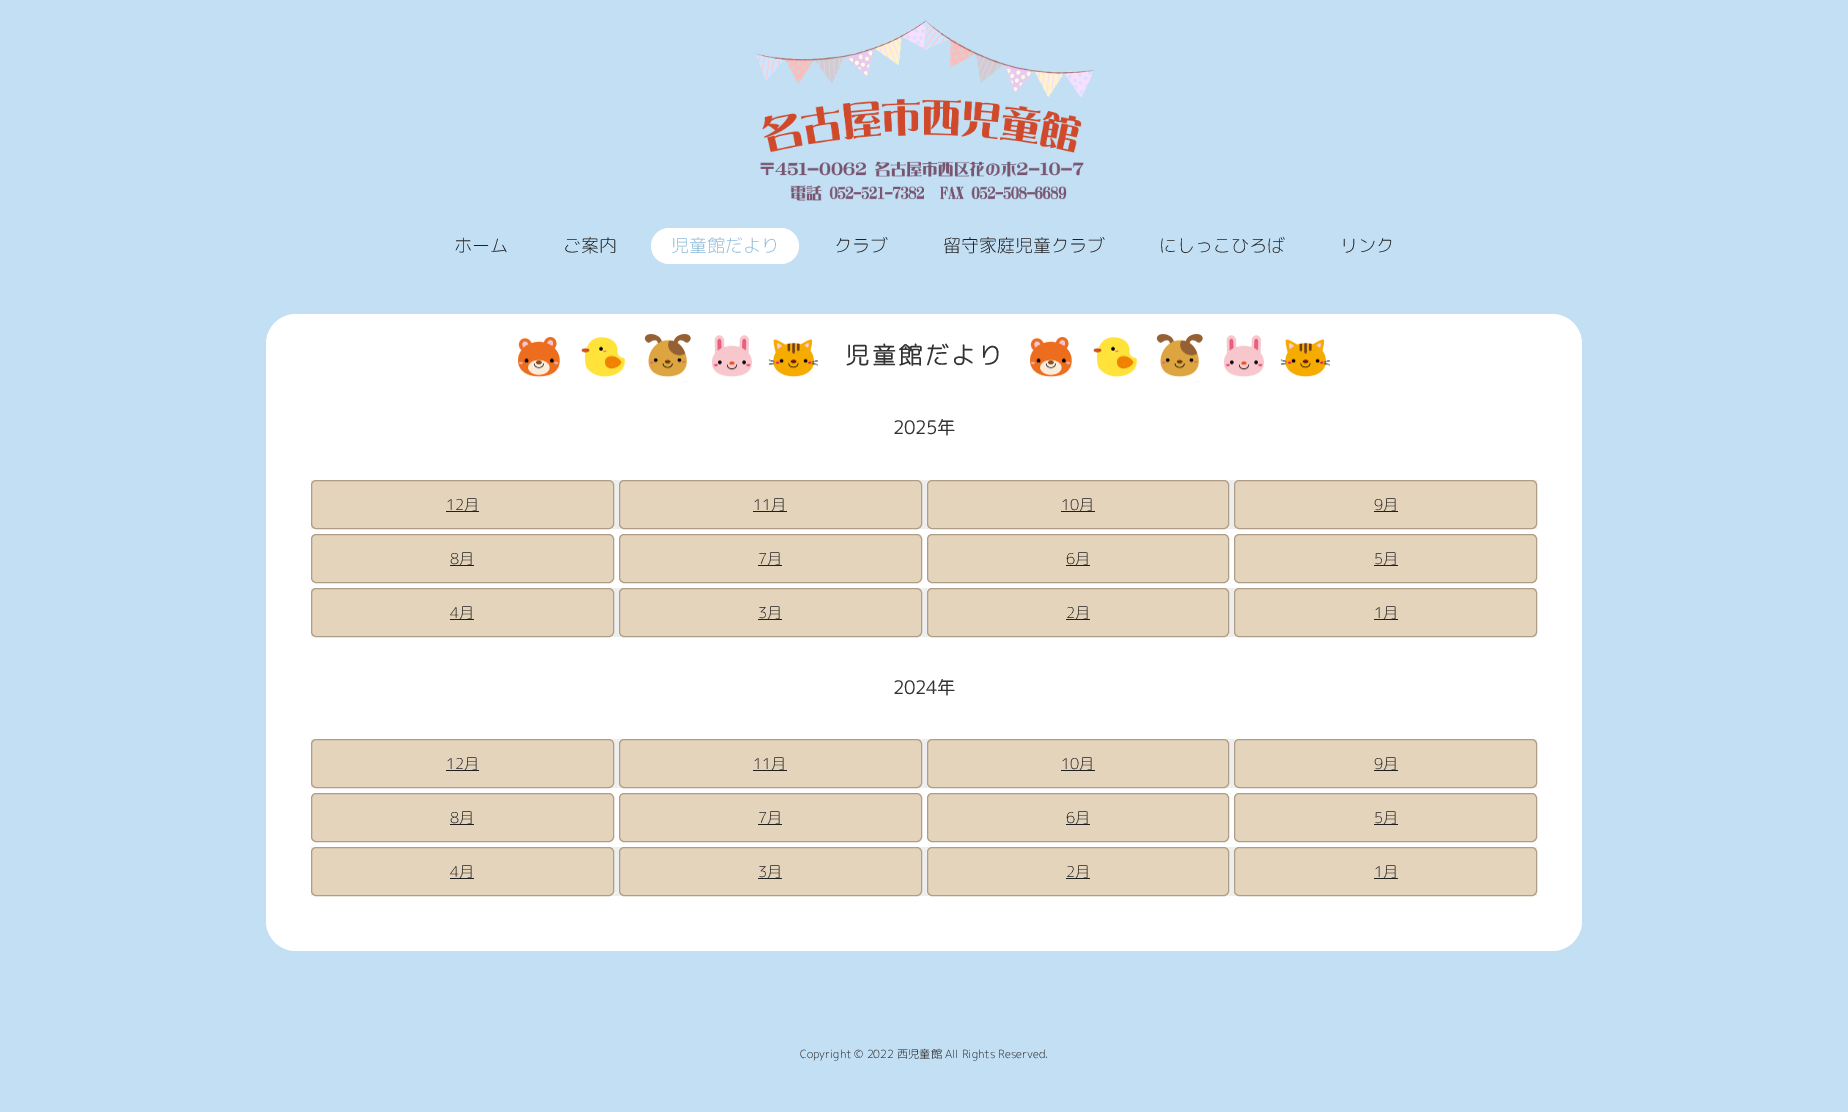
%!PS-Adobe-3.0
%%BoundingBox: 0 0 1848 1112
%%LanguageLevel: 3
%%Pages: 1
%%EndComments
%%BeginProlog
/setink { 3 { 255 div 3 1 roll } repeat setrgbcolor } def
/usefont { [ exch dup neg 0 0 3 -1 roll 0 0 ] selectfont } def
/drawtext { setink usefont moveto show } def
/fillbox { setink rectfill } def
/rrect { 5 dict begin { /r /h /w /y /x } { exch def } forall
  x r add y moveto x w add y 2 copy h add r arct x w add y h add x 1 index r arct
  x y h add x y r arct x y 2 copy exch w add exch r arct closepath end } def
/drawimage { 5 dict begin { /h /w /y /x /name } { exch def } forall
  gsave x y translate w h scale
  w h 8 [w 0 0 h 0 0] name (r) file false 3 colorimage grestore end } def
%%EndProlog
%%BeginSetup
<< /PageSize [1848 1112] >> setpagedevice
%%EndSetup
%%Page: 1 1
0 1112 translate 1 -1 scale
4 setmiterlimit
0 0 1848 1112 195 223 244 fillbox
(assets/img1.rgb) 754 20 340 181 drawimage
(ホーム) 454 252 /RoundedMplus1c-Light 18 33 32 32 drawtext
(ご案内) 563 252 /RoundedMplus1c-Light 18 33 32 32 drawtext
255 255 255 setink
651 228 148 36 18 rrect fill
(児童館だより) 671 252 /RoundedMplus1c-Light 18 139 186 216 drawtext
(クラブ) 834 252 /RoundedMplus1c-Light 18 33 32 32 drawtext
(留守家庭児童クラブ) 943 252 /RoundedMplus1c-Light 18 33 32 32 drawtext
(にしっこひろば) 1159 252 /RoundedMplus1c-Light 18 33 32 32 drawtext
(リンク) 1340 252 /RoundedMplus1c-Light 18 33 32 32 drawtext
255 255 255 setink
266 314 1316 637 30 rrect fill
(assets/img2.rgb) 518 334 300 48 drawimage
/RoundedMplus1c-Bold 24 usefont
51 51 51 setink
845 364 moveto 2.5 0 (児童館だより) ashow
(assets/img2.rgb) 1030 334 300 48 drawimage
(2025年) 893 434 /RoundedMplus1c-Bold 18 51 51 51 drawtext
311 480 1226 49 238 238 238 fillbox
228 212 188 setink
311.5 480.5 302 48 4.5 rrect gsave fill grestore
175 157 133 setink
stroke
446 511 33 1 33 32 32 fillbox
(12月) 446 510 /RoundedMplus1c-Light 15 33 32 32 drawtext
228 212 188 setink
619.5 480.5 302 48 4.5 rrect gsave fill grestore
175 157 133 setink
stroke
753 511 34 1 33 32 32 fillbox
(11月) 753 510 /RoundedMplus1c-Light 15 33 32 32 drawtext
228 212 188 setink
927.5 480.5 301 48 4.5 rrect gsave fill grestore
175 157 133 setink
stroke
1061 511 34 1 33 32 32 fillbox
(10月) 1061 510 /RoundedMplus1c-Light 15 33 32 32 drawtext
228 212 188 setink
1234.5 480.5 302 48 4.5 rrect gsave fill grestore
175 157 133 setink
stroke
1374 511 24 1 33 32 32 fillbox
(9月) 1374 510 /RoundedMplus1c-Light 15 33 32 32 drawtext
228 212 188 setink
311.5 534.5 302 48 4.5 rrect gsave fill grestore
175 157 133 setink
stroke
450 565 24 1 33 32 32 fillbox
(8月) 450 564 /RoundedMplus1c-Light 15 33 32 32 drawtext
228 212 188 setink
619.5 534.5 302 48 4.5 rrect gsave fill grestore
175 157 133 setink
stroke
758 565 24 1 33 32 32 fillbox
(7月) 758 564 /RoundedMplus1c-Light 15 33 32 32 drawtext
228 212 188 setink
927.5 534.5 301 48 4.5 rrect gsave fill grestore
175 157 133 setink
stroke
1066 565 24 1 33 32 32 fillbox
(6月) 1066 564 /RoundedMplus1c-Light 15 33 32 32 drawtext
228 212 188 setink
1234.5 534.5 302 48 4.5 rrect gsave fill grestore
175 157 133 setink
stroke
1374 565 24 1 33 32 32 fillbox
(5月) 1374 564 /RoundedMplus1c-Light 15 33 32 32 drawtext
311 588 1226 49 238 238 238 fillbox
228 212 188 setink
311.5 588.5 302 48 4.5 rrect gsave fill grestore
175 157 133 setink
stroke
450 619 24 1 33 32 32 fillbox
(4月) 450 618 /RoundedMplus1c-Light 15 33 32 32 drawtext
228 212 188 setink
619.5 588.5 302 48 4.5 rrect gsave fill grestore
175 157 133 setink
stroke
758 619 24 1 33 32 32 fillbox
(3月) 758 618 /RoundedMplus1c-Light 15 33 32 32 drawtext
228 212 188 setink
927.5 588.5 301 48 4.5 rrect gsave fill grestore
175 157 133 setink
stroke
1066 619 24 1 33 32 32 fillbox
(2月) 1066 618 /RoundedMplus1c-Light 15 33 32 32 drawtext
228 212 188 setink
1234.5 588.5 302 48 4.5 rrect gsave fill grestore
175 157 133 setink
stroke
1374 619 24 1 33 32 32 fillbox
(1月) 1374 618 /RoundedMplus1c-Light 15 33 32 32 drawtext
(2024年) 893 694 /RoundedMplus1c-Bold 18 51 51 51 drawtext
311 739 1226 49 238 238 238 fillbox
228 212 188 setink
311.5 739.5 302 48 4.5 rrect gsave fill grestore
175 157 133 setink
stroke
446 770 33 1 33 32 32 fillbox
(12月) 446 769 /RoundedMplus1c-Light 15 33 32 32 drawtext
228 212 188 setink
619.5 739.5 302 48 4.5 rrect gsave fill grestore
175 157 133 setink
stroke
753 770 34 1 33 32 32 fillbox
(11月) 753 769 /RoundedMplus1c-Light 15 33 32 32 drawtext
228 212 188 setink
927.5 739.5 301 48 4.5 rrect gsave fill grestore
175 157 133 setink
stroke
1061 770 34 1 33 32 32 fillbox
(10月) 1061 769 /RoundedMplus1c-Light 15 33 32 32 drawtext
228 212 188 setink
1234.5 739.5 302 48 4.5 rrect gsave fill grestore
175 157 133 setink
stroke
1374 770 24 1 33 32 32 fillbox
(9月) 1374 769 /RoundedMplus1c-Light 15 33 32 32 drawtext
228 212 188 setink
311.5 793.5 302 48 4.5 rrect gsave fill grestore
175 157 133 setink
stroke
450 824 24 1 33 32 32 fillbox
(8月) 450 823 /RoundedMplus1c-Light 15 33 32 32 drawtext
228 212 188 setink
619.5 793.5 302 48 4.5 rrect gsave fill grestore
175 157 133 setink
stroke
758 824 24 1 33 32 32 fillbox
(7月) 758 823 /RoundedMplus1c-Light 15 33 32 32 drawtext
228 212 188 setink
927.5 793.5 301 48 4.5 rrect gsave fill grestore
175 157 133 setink
stroke
1066 824 24 1 33 32 32 fillbox
(6月) 1066 823 /RoundedMplus1c-Light 15 33 32 32 drawtext
228 212 188 setink
1234.5 793.5 302 48 4.5 rrect gsave fill grestore
175 157 133 setink
stroke
1374 824 24 1 33 32 32 fillbox
(5月) 1374 823 /RoundedMplus1c-Light 15 33 32 32 drawtext
311 847 1226 49 238 238 238 fillbox
228 212 188 setink
311.5 847.5 302 48 4.5 rrect gsave fill grestore
175 157 133 setink
stroke
450 878 24 1 33 32 32 fillbox
(4月) 450 877 /RoundedMplus1c-Light 15 33 32 32 drawtext
228 212 188 setink
619.5 847.5 302 48 4.5 rrect gsave fill grestore
175 157 133 setink
stroke
758 878 24 1 33 32 32 fillbox
(3月) 758 877 /RoundedMplus1c-Light 15 33 32 32 drawtext
228 212 188 setink
927.5 847.5 301 48 4.5 rrect gsave fill grestore
175 157 133 setink
stroke
1066 878 24 1 33 32 32 fillbox
(2月) 1066 877 /RoundedMplus1c-Light 15 33 32 32 drawtext
228 212 188 setink
1234.5 847.5 302 48 4.5 rrect gsave fill grestore
175 157 133 setink
stroke
1374 878 24 1 33 32 32 fillbox
(1月) 1374 877 /RoundedMplus1c-Light 15 33 32 32 drawtext
(Copyright © 2022 西児童館 All Rights Reserved.) 800 1058 /RoundedMplus1c-Light 11.25 33 32 32 drawtext
showpage
%%EOF
